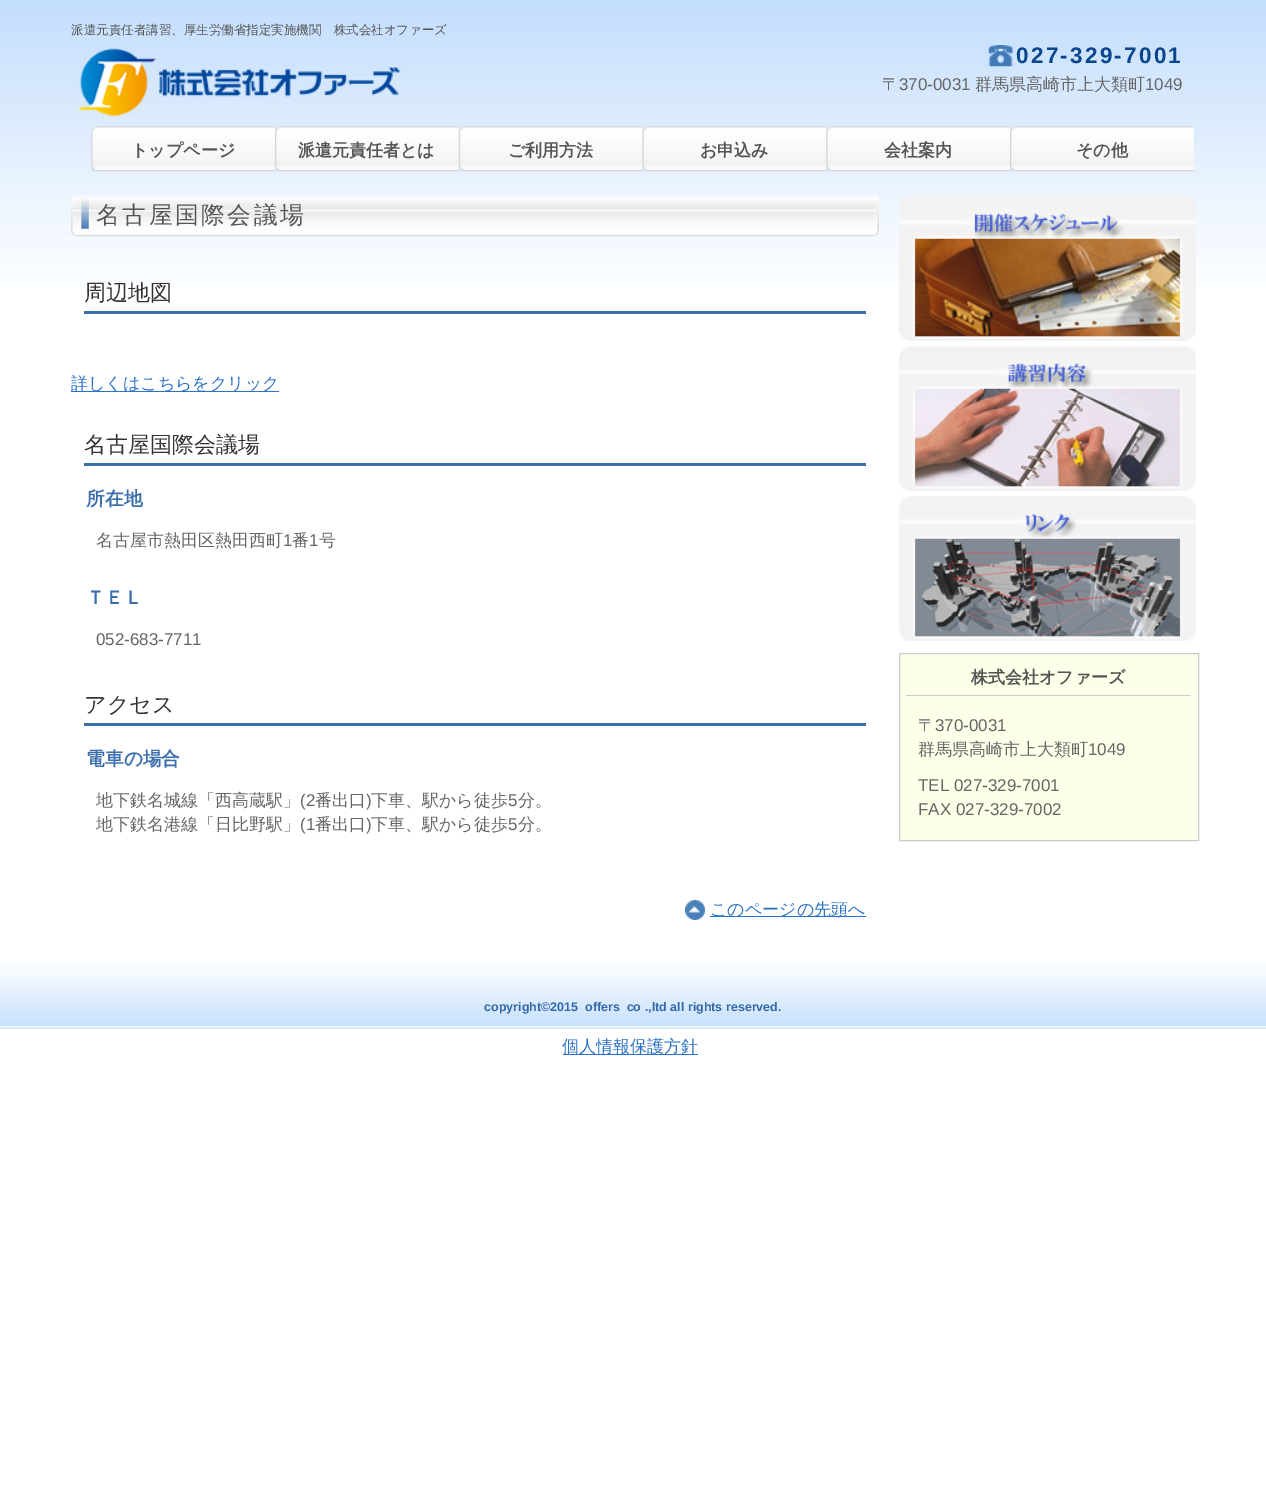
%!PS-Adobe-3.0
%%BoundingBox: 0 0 1266 1488
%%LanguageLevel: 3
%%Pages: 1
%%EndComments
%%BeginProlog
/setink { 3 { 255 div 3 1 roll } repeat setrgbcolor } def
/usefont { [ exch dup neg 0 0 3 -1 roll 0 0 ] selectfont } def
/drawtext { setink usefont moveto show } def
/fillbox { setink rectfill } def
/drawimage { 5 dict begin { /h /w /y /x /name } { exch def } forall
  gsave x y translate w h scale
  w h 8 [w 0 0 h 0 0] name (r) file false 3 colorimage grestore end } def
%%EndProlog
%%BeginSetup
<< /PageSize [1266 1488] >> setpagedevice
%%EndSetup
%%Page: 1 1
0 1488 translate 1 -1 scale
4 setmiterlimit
0 0 1266 1488 255 255 255 fillbox
(assets/img1.rgb) 0 0 1266 286 drawimage
(派遣元責任者講習、厚生労働省指定実施機関　株式会社オファーズ) 71 34 /WenQuanYiZenHei-Medium 12.5 85 85 85 drawtext
(assets/img2.rgb) 77 48 324 69 drawimage
(assets/img3.rgb) 988 45 25 22 drawimage
/LiberationSans-Bold 22.5 usefont
10 70 141 setink
1016 63 moveto 2.25 0 (027-329-7001) ashow
(〒) 882 90 /WenQuanYiZenHei-Medium 17 102 102 102 drawtext
(370-0031) 899 90 /LiberationSans-Regular 17 102 102 102 drawtext
(群馬県高崎市上大類町) 975 90 /WenQuanYiZenHei-Medium 17 102 102 102 drawtext
(1049) 1145 90 /LiberationSans-Regular 17 102 102 102 drawtext
(assets/img4.rgb) 91 126 184 46 drawimage
(トップページ) 131 156 /WenQuanYiZenHei-Bold 17 85 85 85 drawtext
(assets/img5.rgb) 275 126 184 46 drawimage
(派遣元責任者とは) 298 156 /WenQuanYiZenHei-Bold 17 85 85 85 drawtext
(assets/img6.rgb) 458 126 185 46 drawimage
(ご利用方法) 508 156 /WenQuanYiZenHei-Bold 17 85 85 85 drawtext
(assets/img7.rgb) 642 126 185 46 drawimage
(お申込み) 700 156 /WenQuanYiZenHei-Bold 17 85 85 85 drawtext
(assets/img8.rgb) 826 126 184 46 drawimage
(会社案内) 884 156 /WenQuanYiZenHei-Bold 17 85 85 85 drawtext
(assets/img5.rgb) 1010 126 184 46 drawimage
(その他) 1076 156 /WenQuanYiZenHei-Bold 17 85 85 85 drawtext
(assets/img9.rgb) 71 194 808 43 drawimage
/WenQuanYiZenHei-Medium 23.75 usefont
96 223 moveto 2.5 0 (名古屋国際会議場) ashow
84 311 782 3 58 110 173 fillbox
(周辺地図) 84 300 /WenQuanYiZenHei-Medium 22 51 51 51 drawtext
71 391 208 1 41 114 199 fillbox
(詳しくはこちらをクリック) 71 389 /WenQuanYiZenHei-Medium 17 41 114 199 drawtext
84 463 782 3 58 110 173 fillbox
(名古屋国際会議場) 84 452 /WenQuanYiZenHei-Medium 22 51 51 51 drawtext
(所在地) 86 505 /WenQuanYiZenHei-Bold 18.75 58 110 173 drawtext
(名古屋市熱田区熱田西町) 96 546 /WenQuanYiZenHei-Medium 17 102 102 102 drawtext
(1) 283 546 /LiberationSans-Regular 17 102 102 102 drawtext
(番) 292 546 /WenQuanYiZenHei-Medium 17 102 102 102 drawtext
(1) 309 546 /LiberationSans-Regular 17 102 102 102 drawtext
(号) 319 546 /WenQuanYiZenHei-Medium 17 102 102 102 drawtext
(ＴＥＬ) 86 604 /WenQuanYiZenHei-Bold 18.75 58 110 173 drawtext
(052-683-7711) 96 645 /LiberationSans-Regular 17 102 102 102 drawtext
84 723 782 3 58 110 173 fillbox
(アクセス) 84 712 /WenQuanYiZenHei-Medium 22 51 51 51 drawtext
(電車の場合) 86 765 /WenQuanYiZenHei-Bold 18.75 58 110 173 drawtext
(地下鉄名城線「西高蔵駅」) 96 806 /WenQuanYiZenHei-Medium 17 102 102 102 drawtext
(\(2) 300 806 /LiberationSans-Regular 17 102 102 102 drawtext
(番出口) 315 806 /WenQuanYiZenHei-Medium 17 102 102 102 drawtext
(\)) 366 806 /LiberationSans-Regular 17 102 102 102 drawtext
(下車、駅から徒歩) 371 806 /WenQuanYiZenHei-Medium 17 102 102 102 drawtext
(5) 508 806 /LiberationSans-Regular 17 102 102 102 drawtext
(分。) 518 806 /WenQuanYiZenHei-Medium 17 102 102 102 drawtext
(地下鉄名港線「日比野駅」) 96 830 /WenQuanYiZenHei-Medium 17 102 102 102 drawtext
(\(1) 300 830 /LiberationSans-Regular 17 102 102 102 drawtext
(番出口) 315 830 /WenQuanYiZenHei-Medium 17 102 102 102 drawtext
(\)) 366 830 /LiberationSans-Regular 17 102 102 102 drawtext
(下車、駅から徒歩) 371 830 /WenQuanYiZenHei-Medium 17 102 102 102 drawtext
(5) 508 830 /LiberationSans-Regular 17 102 102 102 drawtext
(分。) 518 830 /WenQuanYiZenHei-Medium 17 102 102 102 drawtext
(assets/img10.rgb) 685 900 20 20 drawimage
710 916 156 1 41 114 199 fillbox
(このページの先頭へ) 710 915 /WenQuanYiZenHei-Medium 17 41 114 199 drawtext
(assets/img11.rgb) 899 196 297 145 drawimage
(assets/img12.rgb) 899 346 297 145 drawimage
(assets/img13.rgb) 899 496 297 145 drawimage
254 255 232 setink
899.5 653.5 moveto 1198.5 653.5 lineto 1198.5 840.5 lineto 899.5 840.5 lineto closepath gsave fill grestore
204 204 204 setink
stroke
906 695 285 1 204 204 204 fillbox
(株式会社オファーズ) 971 683 /WenQuanYiZenHei-Bold 17 85 85 85 drawtext
(〒) 918 731 /WenQuanYiZenHei-Medium 17 102 102 102 drawtext
(370-0031) 935 731 /LiberationSans-Regular 17 102 102 102 drawtext
(群馬県高崎市上大類町) 918 755 /WenQuanYiZenHei-Medium 17 102 102 102 drawtext
(1049) 1088 755 /LiberationSans-Regular 17 102 102 102 drawtext
(TEL 027-329-7001) 918 791 /LiberationSans-Regular 17 102 102 102 drawtext
(FAX 027-329-7002) 918 815 /LiberationSans-Regular 17 102 102 102 drawtext
(assets/img14.rgb) 0 963 1266 66 drawimage
(copyright©2015  offers  co .,ltd all rights reserved.) 484 1011 /LiberationSans-Bold 12.5 50 104 169 drawtext
563 1054 135 1 41 114 199 fillbox
(個人情報保護方針) 562 1052 /WenQuanYiZenHei-Medium 17 41 114 199 drawtext
showpage
%%EOF
